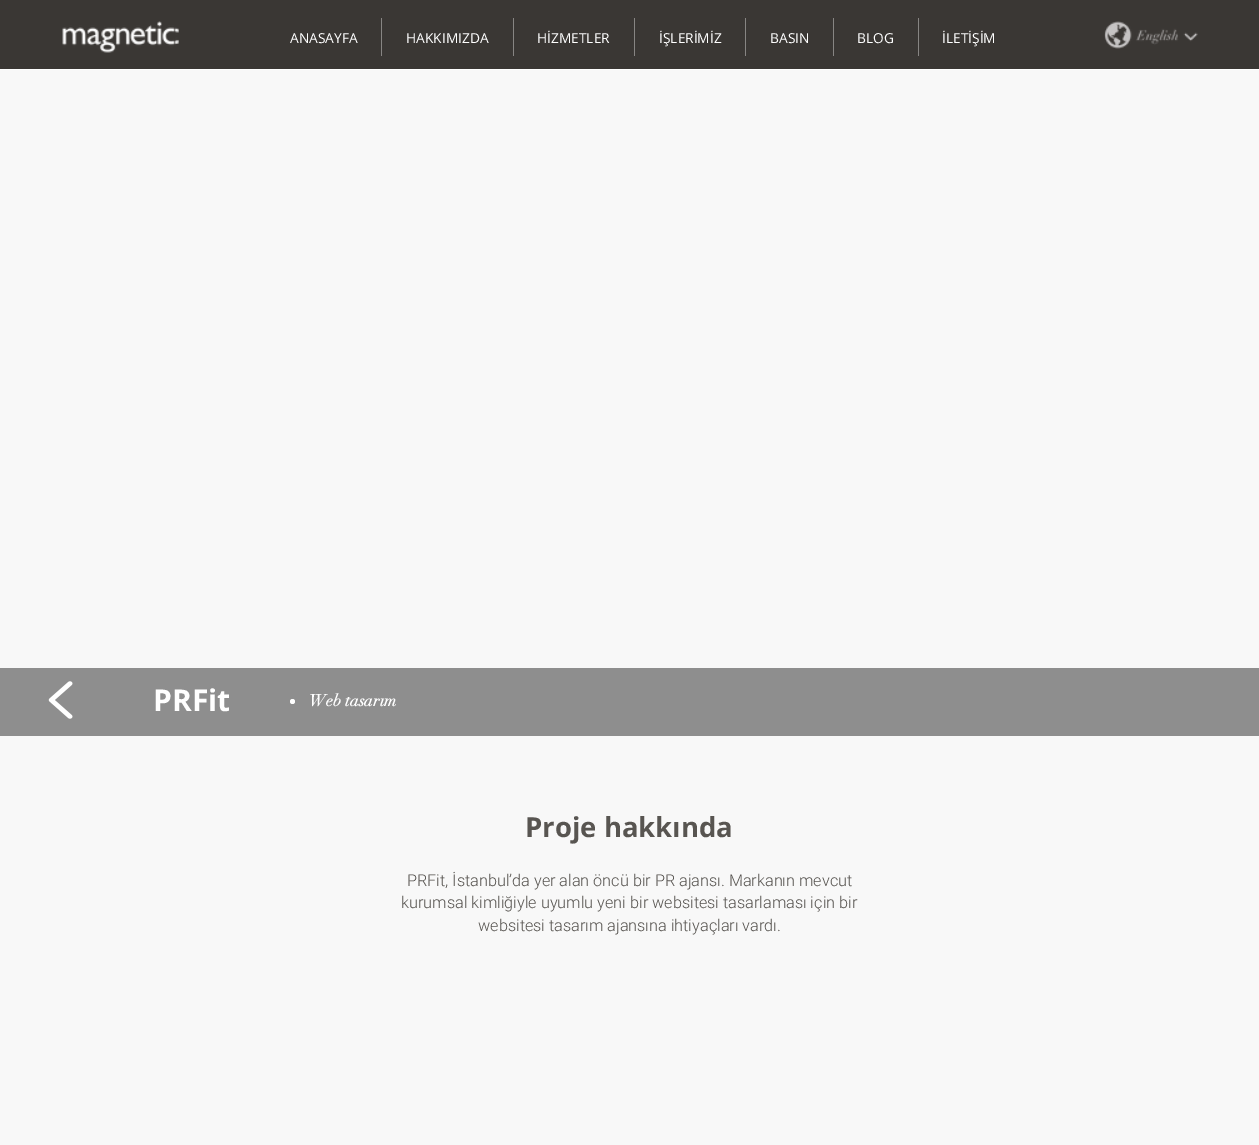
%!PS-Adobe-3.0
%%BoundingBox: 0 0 1259 1145
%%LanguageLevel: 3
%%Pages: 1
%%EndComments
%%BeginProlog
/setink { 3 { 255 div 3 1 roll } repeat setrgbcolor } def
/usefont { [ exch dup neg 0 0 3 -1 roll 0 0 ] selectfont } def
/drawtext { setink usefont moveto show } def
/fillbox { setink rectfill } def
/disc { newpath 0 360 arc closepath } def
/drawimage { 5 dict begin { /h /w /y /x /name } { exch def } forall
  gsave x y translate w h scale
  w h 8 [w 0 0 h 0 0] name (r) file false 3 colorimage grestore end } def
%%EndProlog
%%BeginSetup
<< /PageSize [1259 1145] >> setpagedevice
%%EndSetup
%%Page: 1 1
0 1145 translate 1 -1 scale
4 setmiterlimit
0 0 1259 1145 248 248 248 fillbox
0 0 1259 69 58 55 52 fillbox
(assets/img1.rgb) 62 21 117 32 drawimage
(ANASAYFA) 290 43 /OpenSans-Regular 13.75 255 255 255 drawtext
381 18 1 38 135 133 131 fillbox
(HAKKIMIZDA) 406 43 /OpenSans-Regular 13.75 255 255 255 drawtext
513 18 1 38 135 133 131 fillbox
(HİZMETLER) 537 43 /OpenSans-Regular 13.75 255 255 255 drawtext
634 18 1 38 135 133 131 fillbox
(İŞLERİMİZ) 659 43 /OpenSans-Regular 13.75 255 255 255 drawtext
745 18 1 38 135 133 131 fillbox
(BASIN) 770 43 /OpenSans-Regular 13.75 255 255 255 drawtext
833 18 1 38 135 133 131 fillbox
(BLOG) 857 43 /OpenSans-Regular 13.75 255 255 255 drawtext
918 18 1 38 135 133 131 fillbox
(İLETİŞİM) 942 43 /OpenSans-Regular 13.75 255 255 255 drawtext
(assets/img2.rgb) 1104 21 94 28 drawimage
0 69 1259 1 255 255 255 fillbox
0 668 1259 68 142 142 142 fillbox
(assets/img3.rgb) 48 681 25 38 drawimage
(PRFit) 153 711 /OpenSans-Bold 30 255 255 255 drawtext
292.5 701.5 2.5 disc fill
(Web tasarım) 309 706 /didot-Bold 16.25 255 255 255 drawtext
(Proje hakkında) 525 837 /OpenSans-Bold 27.5 88 85 81 drawtext
(PRFit, İstanbul’da yer alan öncü bir PR ajansı. Markanın mevcut) 407 886 /Roboto-Light 16.25 88 85 81 drawtext
(kurumsal kimliğiyle uyumlu yeni bir websitesi tasarlaması için bir) 401 908 /Roboto-Light 16.25 88 85 81 drawtext
(websitesi tasarım ajansına ihtiyaçları vardı.) 478 931 /Roboto-Light 16.25 88 85 81 drawtext
showpage
%%EOF
